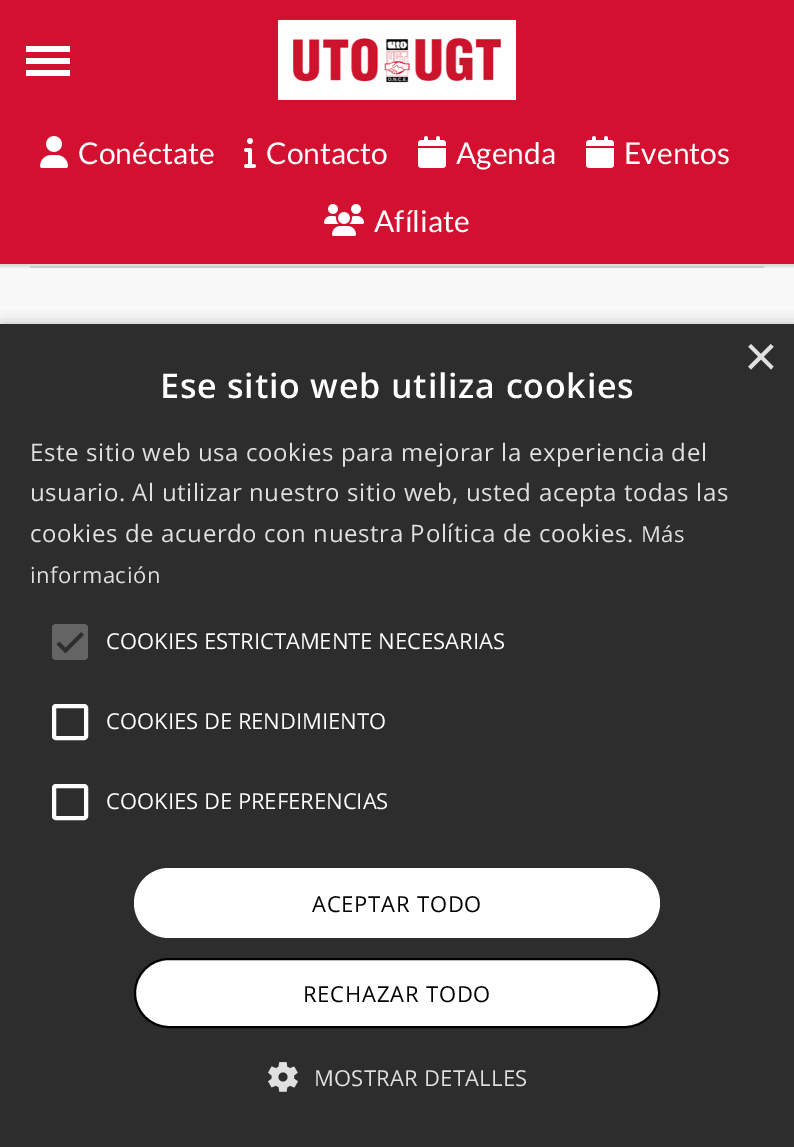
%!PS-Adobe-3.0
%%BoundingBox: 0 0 794 1147
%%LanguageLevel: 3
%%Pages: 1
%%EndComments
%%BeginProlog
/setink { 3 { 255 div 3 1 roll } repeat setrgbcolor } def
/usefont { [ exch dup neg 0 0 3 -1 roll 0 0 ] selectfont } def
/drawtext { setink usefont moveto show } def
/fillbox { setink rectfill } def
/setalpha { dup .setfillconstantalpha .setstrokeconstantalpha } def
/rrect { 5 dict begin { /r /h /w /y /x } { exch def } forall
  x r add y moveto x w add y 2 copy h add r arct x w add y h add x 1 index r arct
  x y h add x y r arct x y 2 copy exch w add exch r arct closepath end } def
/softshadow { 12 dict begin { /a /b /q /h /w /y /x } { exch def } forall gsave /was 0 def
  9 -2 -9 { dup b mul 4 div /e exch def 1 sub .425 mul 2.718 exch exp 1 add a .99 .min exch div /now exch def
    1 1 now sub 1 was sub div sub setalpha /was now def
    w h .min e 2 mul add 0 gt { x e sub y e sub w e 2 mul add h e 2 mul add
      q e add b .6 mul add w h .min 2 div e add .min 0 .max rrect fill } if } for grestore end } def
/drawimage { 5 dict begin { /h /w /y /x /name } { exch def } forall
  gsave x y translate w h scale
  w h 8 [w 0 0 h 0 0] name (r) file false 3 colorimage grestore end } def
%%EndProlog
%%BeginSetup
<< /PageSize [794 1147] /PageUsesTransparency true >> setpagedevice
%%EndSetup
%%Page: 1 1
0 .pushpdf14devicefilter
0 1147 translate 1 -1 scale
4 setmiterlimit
0 0 794 1147 230 232 235 fillbox
0 0 794 264 211 16 48 fillbox
26 46 44 6 255 255 255 fillbox
26 58 44 6 255 255 255 fillbox
26 70 44 6 255 255 255 fillbox
(assets/img1.rgb) 277 19 239 81 drawimage
(assets/img2.rgb) 40 136 28 32 drawimage
(Conéctate) 78 164 /Lato-Regular 30 255 255 255 drawtext
(assets/img3.rgb) 244 138 12 30 drawimage
(Contacto) 266 164 /Lato-Regular 30 255 255 255 drawtext
(assets/img4.rgb) 418 136 28 32 drawimage
(Agenda) 456 164 /Lato-Regular 30 255 255 255 drawtext
(assets/img4.rgb) 586 136 28 32 drawimage
(Eventos) 624 164 /Lato-Regular 30 255 255 255 drawtext
(assets/img5.rgb) 324 204 40 32 drawimage
(Afíliate) 374 232 /Lato-Regular 30 255 255 255 drawtext
0 264 794 2 218 218 218 fillbox
30 266 734 2 204 204 204 fillbox
0 268 794 56 248 248 248 fillbox
0 0 0 setink
2 328 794 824 0 8 0.35 softshadow
0 324 794 823 45 45 45 fillbox
(×) 744 376 /LiberationSans-Regular 58 224 224 224 drawtext
/OpenSans-SemiBold 34 usefont
255 255 255 setink
160 398 moveto 0.8 0 (Ese sitio web utiliza cookies) ashow
/OpenSans-Regular 24 usefont
224 224 224 setink
30 461 moveto 0.6 0 (Este sitio web usa cookies para mejorar la experiencia del) ashow
30 501 moveto 0.6 0 (usuario. Al utilizar nuestro sitio web, usted acepta todas las) ashow
30 542 moveto 0.6 0 (cookies de acuerdo con nuestra Política de cookies.) ashow
/OpenSans-Regular 22 usefont
641 542 moveto 0.6 0 (Más) ashow
30 583 moveto 0.6 0 (información) ashow
100 100 100 setink
52 624 36 36 4 rrect fill
45 45 45 setink
3.6 setlinewidth
58 643 moveto 65.5 650.5 lineto 82.5 633.5 lineto stroke
(COOKIES ESTRICTAMENTE NECESARIAS) 106 649 /OpenSans-Regular 22 255 255 255 drawtext
4 setlinewidth
54 706 32 32 2 rrect stroke
(COOKIES DE RENDIMIENTO) 106 729 /OpenSans-Regular 22 255 255 255 drawtext
54 786 32 32 2 rrect stroke
(COOKIES DE PREFERENCIAS) 106 809 /OpenSans-Regular 22 255 255 255 drawtext
134 868 526 70 35 rrect fill
0 0 0 setink
312 912 moveto 0.8 0 (ACEPTAR TODO) ashow
255 255 255 setink
135 959 524 68 34 rrect gsave fill grestore
0 0 0 setink
2 setlinewidth
stroke
303 1002 moveto 0.8 0 (RECHAZAR TODO) ashow
(assets/img6.rgb) 268 1062 30 30 drawimage
224 224 224 setink
314 1086 moveto 0.25 0 (MOSTRAR DETALLES) ashow
.poppdf14devicefilter showpage
%%EOF
